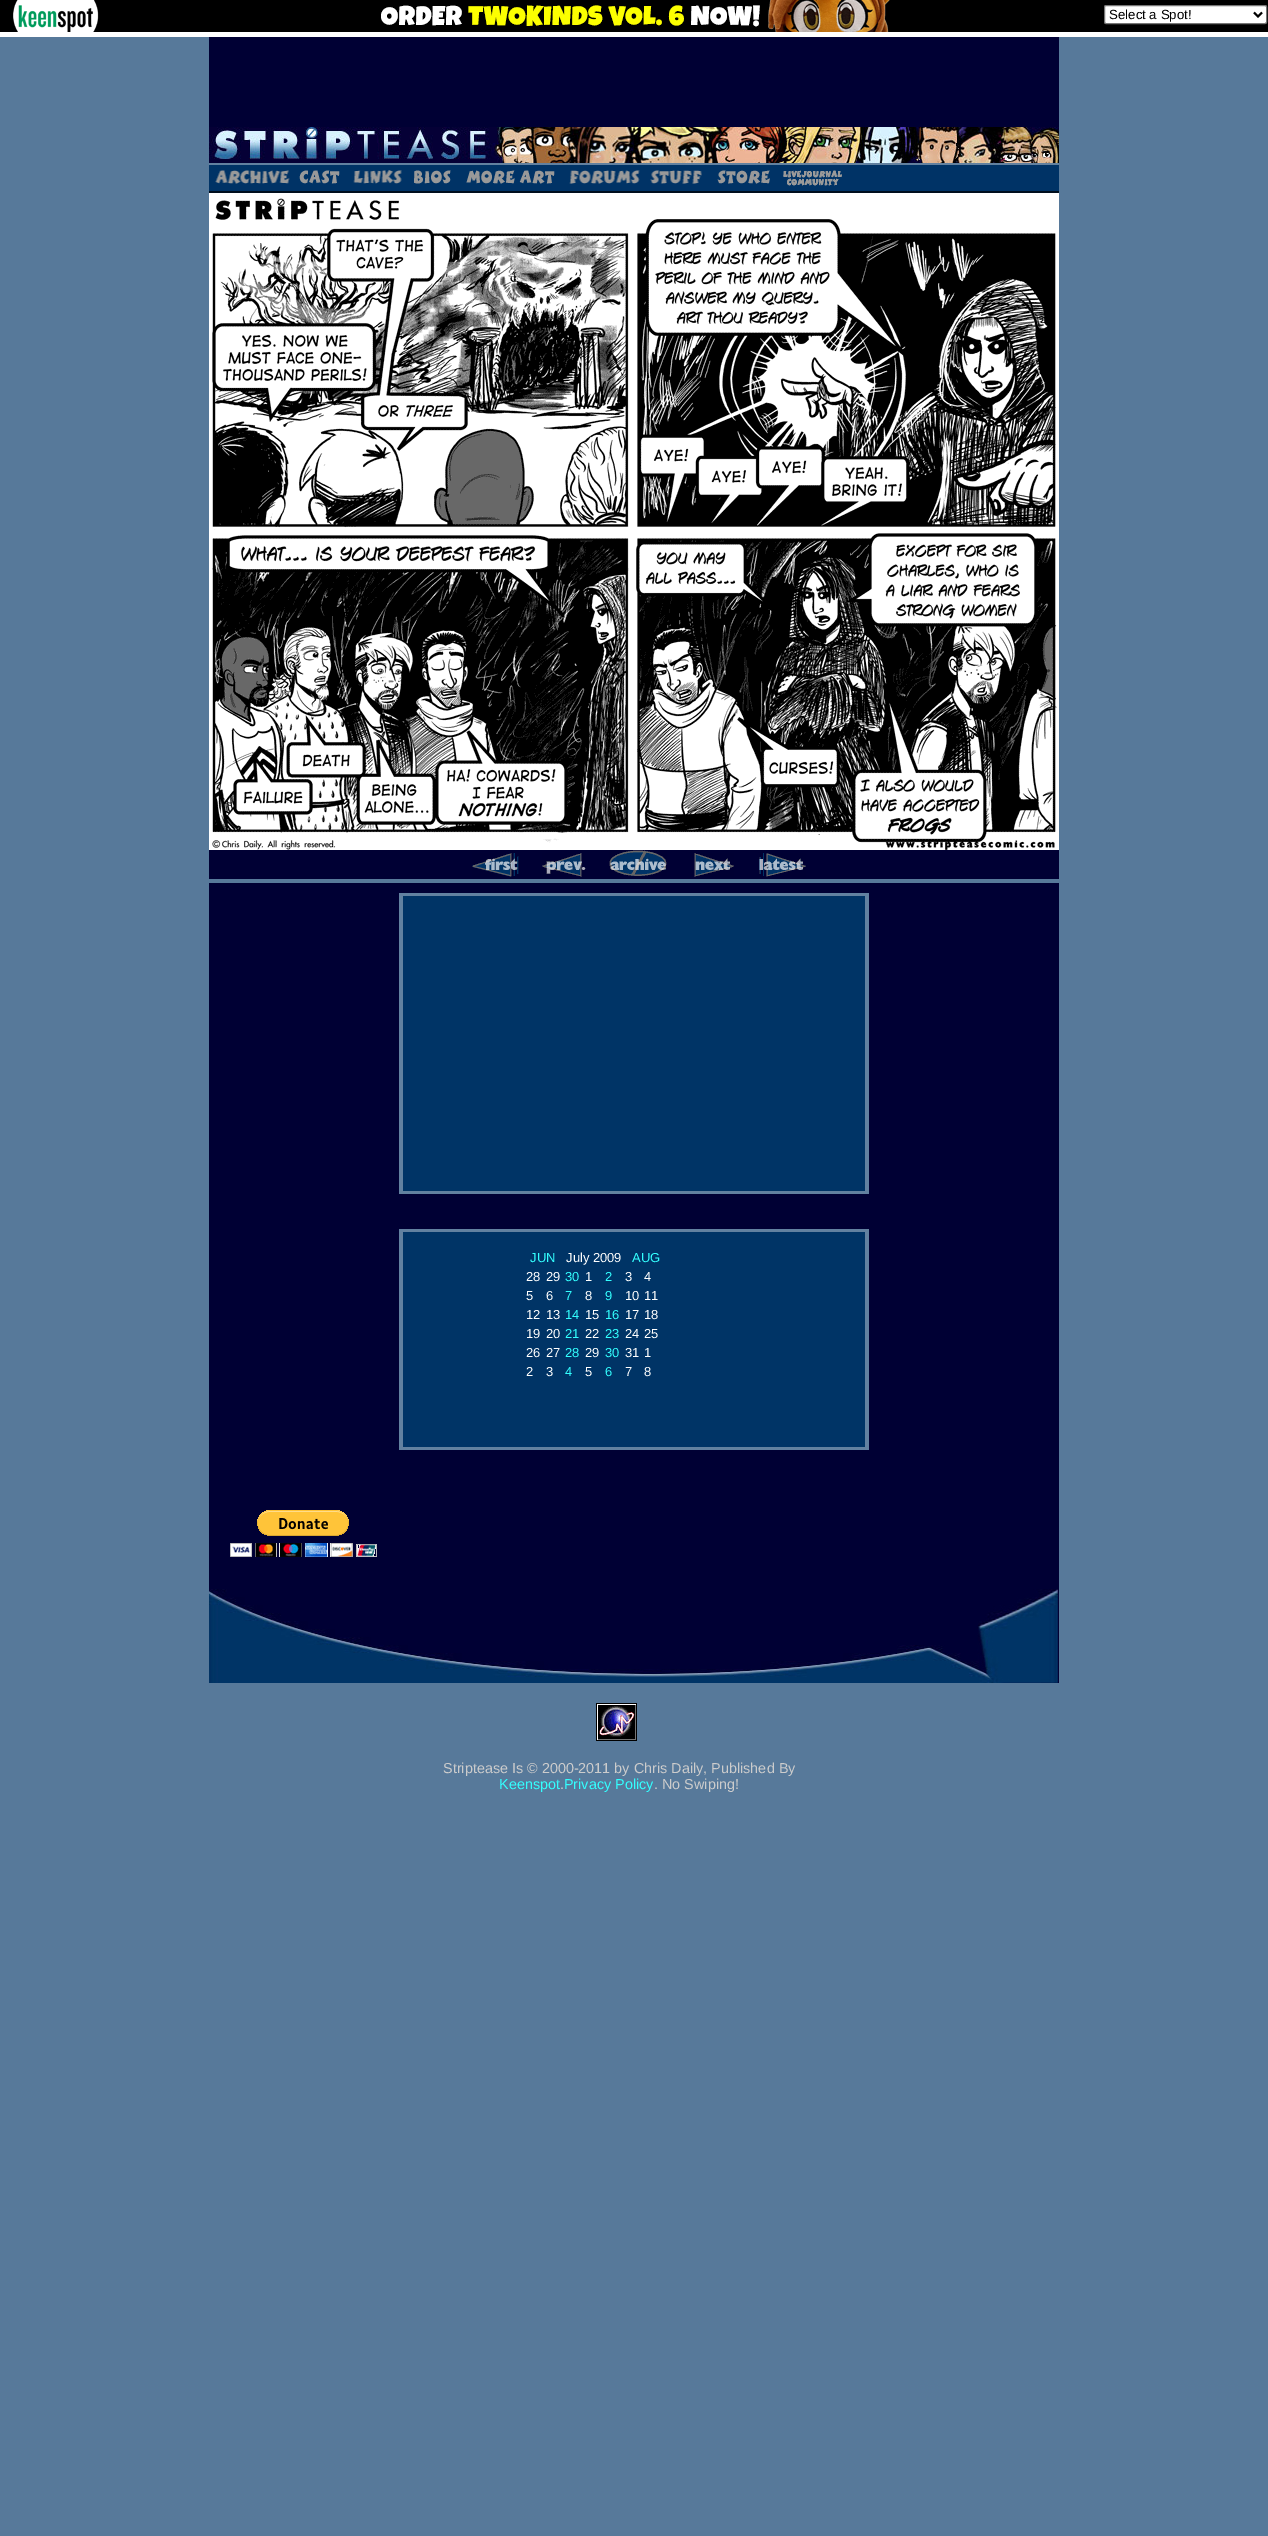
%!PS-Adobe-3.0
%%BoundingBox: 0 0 1268 2536
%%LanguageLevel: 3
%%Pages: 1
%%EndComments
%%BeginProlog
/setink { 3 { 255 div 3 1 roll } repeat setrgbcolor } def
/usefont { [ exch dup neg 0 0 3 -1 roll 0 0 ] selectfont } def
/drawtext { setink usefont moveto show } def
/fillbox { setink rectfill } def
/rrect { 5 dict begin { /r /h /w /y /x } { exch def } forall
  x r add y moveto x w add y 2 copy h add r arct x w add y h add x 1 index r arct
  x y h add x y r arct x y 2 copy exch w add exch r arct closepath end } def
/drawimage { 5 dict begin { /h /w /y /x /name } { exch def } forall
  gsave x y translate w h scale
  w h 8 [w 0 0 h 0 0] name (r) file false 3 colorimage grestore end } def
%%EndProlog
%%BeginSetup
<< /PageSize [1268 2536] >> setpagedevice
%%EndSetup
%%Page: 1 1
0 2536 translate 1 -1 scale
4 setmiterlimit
0 0 1268 2536 87 121 154 fillbox
0 0 1268 32 0 0 0 fillbox
0 32 1268 5 255 255 255 fillbox
(assets/img1.rgb) 13 0 86 32 drawimage
(assets/img2.rgb) 381 0 509 32 drawimage
1104.5 5.5 162 18 1.5 rrect gsave fill grestore
118 118 118 setink
stroke
0 0 0 setink
2 setlinewidth
1254 12.5 moveto 1258 16.5 lineto 1262 12.5 lineto stroke
(Select a Spot!) 1109 19 /LiberationSans-Regular 13.25 0 0 0 drawtext
209 37 850 842 0 0 52 fillbox
(assets/img3.rgb) 209 127 850 36 drawimage
209 165 850 26 0 51 102 fillbox
209 163 850 2 98 129 160 fillbox
209 191 850 2 0 14 29 fillbox
(assets/img4.rgb) 215 170 75 14 drawimage
(assets/img5.rgb) 299 170 41 14 drawimage
(assets/img6.rgb) 353 170 49 14 drawimage
(assets/img7.rgb) 414 170 37 14 drawimage
(assets/img8.rgb) 466 170 89 14 drawimage
(assets/img9.rgb) 569 170 71 14 drawimage
(assets/img10.rgb) 650 170 52 14 drawimage
(assets/img11.rgb) 717 170 53 14 drawimage
(assets/img12.rgb) 783 170 59 16 drawimage
(assets/img13.rgb) 209 193 850 657 drawimage
(assets/img14.rgb) 472 853 47 24 drawimage
(assets/img15.rgb) 542 853 44 24 drawimage
(assets/img16.rgb) 609 850 58 26 drawimage
(assets/img17.rgb) 694 853 40 24 drawimage
(assets/img18.rgb) 759 853 47 24 drawimage
209 883 850 706 0 0 52 fillbox
(assets/img19.rgb) 230 1510 147 47 drawimage
403 896 462 295 0 52 102 fillbox
399 893 470 3 98 129 160 fillbox
865 893 4 301 98 129 160 fillbox
399 1191 470 3 98 129 160 fillbox
399 893 4 301 98 129 160 fillbox
403 1232 462 215 0 52 102 fillbox
399 1229 470 3 98 129 160 fillbox
865 1229 4 221 98 129 160 fillbox
399 1447 470 3 98 129 160 fillbox
399 1229 4 221 98 129 160 fillbox
(JUN) 530 1262 /LiberationSans-Regular 13 51 255 255 drawtext
(July 2009) 566 1262 /LiberationSans-Regular 13 255 255 255 drawtext
(AUG) 632 1262 /LiberationSans-Regular 13 51 255 255 drawtext
(28) 526 1281 /LiberationSans-Regular 13 255 255 255 drawtext
(29) 546 1281 /LiberationSans-Regular 13 255 255 255 drawtext
(30) 565 1281 /LiberationSans-Regular 13 51 255 255 drawtext
(1) 585 1281 /LiberationSans-Regular 13 255 255 255 drawtext
(2) 605 1281 /LiberationSans-Regular 13 51 255 255 drawtext
(3) 625 1281 /LiberationSans-Regular 13 255 255 255 drawtext
(4) 644 1281 /LiberationSans-Regular 13 255 255 255 drawtext
(5) 526 1300 /LiberationSans-Regular 13 255 255 255 drawtext
(6) 546 1300 /LiberationSans-Regular 13 255 255 255 drawtext
(7) 565 1300 /LiberationSans-Regular 13 51 255 255 drawtext
(8) 585 1300 /LiberationSans-Regular 13 255 255 255 drawtext
(9) 605 1300 /LiberationSans-Regular 13 51 255 255 drawtext
(10) 625 1300 /LiberationSans-Regular 13 255 255 255 drawtext
(11) 644 1300 /LiberationSans-Regular 13 255 255 255 drawtext
(12) 526 1319 /LiberationSans-Regular 13 255 255 255 drawtext
(13) 546 1319 /LiberationSans-Regular 13 255 255 255 drawtext
(14) 565 1319 /LiberationSans-Regular 13 51 255 255 drawtext
(15) 585 1319 /LiberationSans-Regular 13 255 255 255 drawtext
(16) 605 1319 /LiberationSans-Regular 13 51 255 255 drawtext
(17) 625 1319 /LiberationSans-Regular 13 255 255 255 drawtext
(18) 644 1319 /LiberationSans-Regular 13 255 255 255 drawtext
(19) 526 1338 /LiberationSans-Regular 13 255 255 255 drawtext
(20) 546 1338 /LiberationSans-Regular 13 255 255 255 drawtext
(21) 565 1338 /LiberationSans-Regular 13 51 255 255 drawtext
(22) 585 1338 /LiberationSans-Regular 13 255 255 255 drawtext
(23) 605 1338 /LiberationSans-Regular 13 51 255 255 drawtext
(24) 625 1338 /LiberationSans-Regular 13 255 255 255 drawtext
(25) 644 1338 /LiberationSans-Regular 13 255 255 255 drawtext
(26) 526 1357 /LiberationSans-Regular 13 255 255 255 drawtext
(27) 546 1357 /LiberationSans-Regular 13 255 255 255 drawtext
(28) 565 1357 /LiberationSans-Regular 13 51 255 255 drawtext
(29) 585 1357 /LiberationSans-Regular 13 255 255 255 drawtext
(30) 605 1357 /LiberationSans-Regular 13 51 255 255 drawtext
(31) 625 1357 /LiberationSans-Regular 13 255 255 255 drawtext
(1) 644 1357 /LiberationSans-Regular 13 255 255 255 drawtext
(2) 526 1376 /LiberationSans-Regular 13 255 255 255 drawtext
(3) 546 1376 /LiberationSans-Regular 13 255 255 255 drawtext
(4) 565 1376 /LiberationSans-Regular 13 51 255 255 drawtext
(5) 585 1376 /LiberationSans-Regular 13 255 255 255 drawtext
(6) 605 1376 /LiberationSans-Regular 13 51 255 255 drawtext
(7) 625 1376 /LiberationSans-Regular 13 255 255 255 drawtext
(8) 644 1376 /LiberationSans-Regular 13 255 255 255 drawtext
(assets/img20.rgb) 209 1589 850 94 drawimage
(assets/img21.rgb) 596 1703 41 38 drawimage
(Striptease Is © 2000-2011 by Chris Daily, Published By) 443 1773 /LiberationSans-Regular 14.4 204 204 204 drawtext
(Keenspot Privacy Policy) 499 1789 /LiberationSans-Regular 14.4 51 255 255 drawtext
(. No Swiping!) 654 1789 /LiberationSans-Regular 14.4 204 204 204 drawtext
(.) 560 1789 /LiberationSans-Regular 14.4 204 204 204 drawtext
showpage
%%EOF
